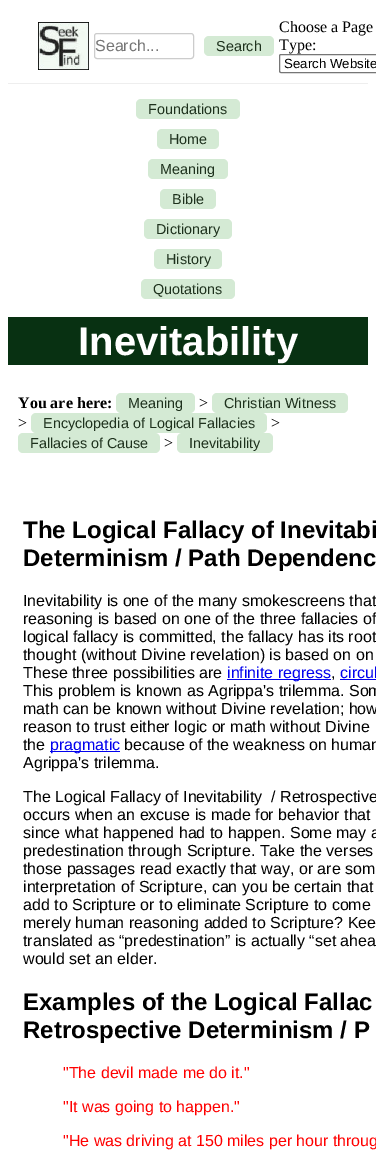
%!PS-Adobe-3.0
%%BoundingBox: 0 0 376 1150
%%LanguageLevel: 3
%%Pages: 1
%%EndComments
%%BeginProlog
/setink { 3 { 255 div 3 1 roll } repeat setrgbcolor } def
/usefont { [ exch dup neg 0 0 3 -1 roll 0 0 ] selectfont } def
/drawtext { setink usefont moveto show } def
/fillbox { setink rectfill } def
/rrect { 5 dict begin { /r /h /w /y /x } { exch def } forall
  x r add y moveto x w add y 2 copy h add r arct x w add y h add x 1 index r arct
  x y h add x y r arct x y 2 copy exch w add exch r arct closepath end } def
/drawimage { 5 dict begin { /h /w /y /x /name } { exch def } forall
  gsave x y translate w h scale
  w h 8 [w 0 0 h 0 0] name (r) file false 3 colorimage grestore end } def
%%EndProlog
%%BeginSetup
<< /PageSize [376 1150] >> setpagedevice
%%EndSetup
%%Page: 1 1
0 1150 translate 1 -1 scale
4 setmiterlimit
0 0 376 1150 255 255 255 fillbox
8 83 360 1 238 238 238 fillbox
(assets/img1.rgb) 38 22 51 48 drawimage
204 204 204 setink
94.5 33.5 99 25 2.5 rrect stroke
(Search...) 95 51 /LiberationSans-Regular 16 117 117 117 drawtext
212 234 212 setink
204 36 70 20 5 rrect fill
(Search) 216 51 /LiberationSans-Regular 14.4 30 49 29 drawtext
(Choose a Page) 279 32 /LiberationSerif-Regular 16 0 0 0 drawtext
(Type:) 279 50 /LiberationSerif-Regular 16 0 0 0 drawtext
118 118 118 setink
279.5 54.5 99 18 1.5 rrect stroke
(Search Website) 284 68 /LiberationSans-Regular 13.25 0 0 0 drawtext
212 234 212 setink
136 99 104 20 5 rrect fill
(Foundations) 148 114 /LiberationSans-Regular 14.4 30 49 29 drawtext
212 234 212 setink
157 129 62 20 5 rrect fill
(Home) 169 144 /LiberationSans-Regular 14.4 30 49 29 drawtext
212 234 212 setink
148 159 80 20 5 rrect fill
(Meaning) 160 174 /LiberationSans-Regular 14.4 30 49 29 drawtext
212 234 212 setink
160 189 56 20 5 rrect fill
(Bible) 172 204 /LiberationSans-Regular 14.4 30 49 29 drawtext
212 234 212 setink
144 219 88 20 5 rrect fill
(Dictionary) 156 234 /LiberationSans-Regular 14.4 30 49 29 drawtext
212 234 212 setink
154 249 68 20 5 rrect fill
(History) 166 264 /LiberationSans-Regular 14.4 30 49 29 drawtext
212 234 212 setink
141 279 94 20 5 rrect fill
(Quotations) 153 294 /LiberationSans-Regular 14.4 30 49 29 drawtext
8 317 360 48 8 49 18 fillbox
(Inevitability) 78 355 /LiberationSans-Bold 40 255 255 255 drawtext
(You are here:) 18 408 /LiberationSerif-Bold 16 0 0 0 drawtext
212 234 212 setink
116 393 79 20 5 rrect fill
(Meaning) 128 408 /LiberationSans-Regular 14.4 30 49 29 drawtext
(>) 199 408 /LiberationSerif-Regular 16 0 0 0 drawtext
212 234 212 setink
212 393 136 20 5 rrect fill
(Christian Witness) 224 408 /LiberationSans-Regular 14.4 30 49 29 drawtext
(>) 18 428 /LiberationSerif-Regular 16 0 0 0 drawtext
212 234 212 setink
31 413 236 20 5 rrect fill
(Encyclopedia of Logical Fallacies) 43 428 /LiberationSans-Regular 14.4 30 49 29 drawtext
(>) 271 428 /LiberationSerif-Regular 16 0 0 0 drawtext
212 234 212 setink
18 433 142 20 5 rrect fill
(Fallacies of Cause) 30 448 /LiberationSans-Regular 14.4 30 49 29 drawtext
(>) 164 448 /LiberationSerif-Regular 16 0 0 0 drawtext
212 234 212 setink
177 433 96 20 5 rrect fill
(Inevitability) 189 448 /LiberationSans-Regular 14.4 30 49 29 drawtext
(The Logical Fallacy of Inevitabi) 23 538 /LiberationSans-Bold 24 0 0 0 drawtext
(Determinism / Path Dependenc) 23 566 /LiberationSans-Bold 24 0 0 0 drawtext
(Inevitability is one of the many smokescreens that) 23 606 /LiberationSans-Regular 16 0 0 0 drawtext
(reasoning is based on one of the three fallacies of) 23 624 /LiberationSans-Regular 16 0 0 0 drawtext
(logical fallacy is committed, the fallacy has its root) 23 642 /LiberationSans-Regular 16 0 0 0 drawtext
(thought \(without Divine revelation\) is based on on) 23 660 /LiberationSans-Regular 16 0 0 0 drawtext
(These three possibilities are) 23 678 /LiberationSans-Regular 16 0 0 0 drawtext
227 679 104 1 0 0 238 fillbox
(infinite regress) 227 678 /LiberationSans-Regular 16 0 0 238 drawtext
(,) 331 678 /LiberationSans-Regular 16 0 0 0 drawtext
340 679 36 1 0 0 238 fillbox
(circul) 340 678 /LiberationSans-Regular 16 0 0 238 drawtext
(This problem is known as Agrippa's trilemma. Som) 23 696 /LiberationSans-Regular 16 0 0 0 drawtext
(math can be known without Divine revelation; how) 23 714 /LiberationSans-Regular 16 0 0 0 drawtext
(reason to trust either logic or math without Divine) 23 732 /LiberationSans-Regular 16 0 0 0 drawtext
(the) 23 750 /LiberationSans-Regular 16 0 0 0 drawtext
50 751 70 1 0 0 238 fillbox
(pragmatic) 50 750 /LiberationSans-Regular 16 0 0 238 drawtext
(because of the weakness on human) 124 750 /LiberationSans-Regular 16 0 0 0 drawtext
(Agrippa's trilemma.) 23 768 /LiberationSans-Regular 16 0 0 0 drawtext
(The Logical Fallacy of Inevitability  / Retrospective) 23 802 /LiberationSans-Regular 16 0 0 0 drawtext
(occurs when an excuse is made for behavior that) 23 820 /LiberationSans-Regular 16 0 0 0 drawtext
(since what happened had to happen. Some may a) 23 838 /LiberationSans-Regular 16 0 0 0 drawtext
(predestination through Scripture. Take the verses) 23 856 /LiberationSans-Regular 16 0 0 0 drawtext
(those passages read exactly that way, or are som) 23 874 /LiberationSans-Regular 16 0 0 0 drawtext
(interpretation of Scripture, can you be certain that) 23 892 /LiberationSans-Regular 16 0 0 0 drawtext
(add to Scripture or to eliminate Scripture to come) 23 910 /LiberationSans-Regular 16 0 0 0 drawtext
(merely human reasoning added to Scripture? Kee) 23 928 /LiberationSans-Regular 16 0 0 0 drawtext
(translated as “predestination” is actually “set ahea) 23 946 /LiberationSans-Regular 16 0 0 0 drawtext
(would set an elder.) 23 964 /LiberationSans-Regular 16 0 0 0 drawtext
(Examples of the Logical Fallac) 23 1010 /LiberationSans-Bold 24 0 0 0 drawtext
(Retrospective Determinism / P) 23 1038 /LiberationSans-Bold 24 0 0 0 drawtext
("The devil made me do it.") 63 1078 /LiberationSans-Regular 16 255 0 0 drawtext
("It was going to happen.") 63 1112 /LiberationSans-Regular 16 255 0 0 drawtext
("He was driving at 150 miles per hour throug) 63 1146 /LiberationSans-Regular 16 255 0 0 drawtext
showpage
%%EOF
